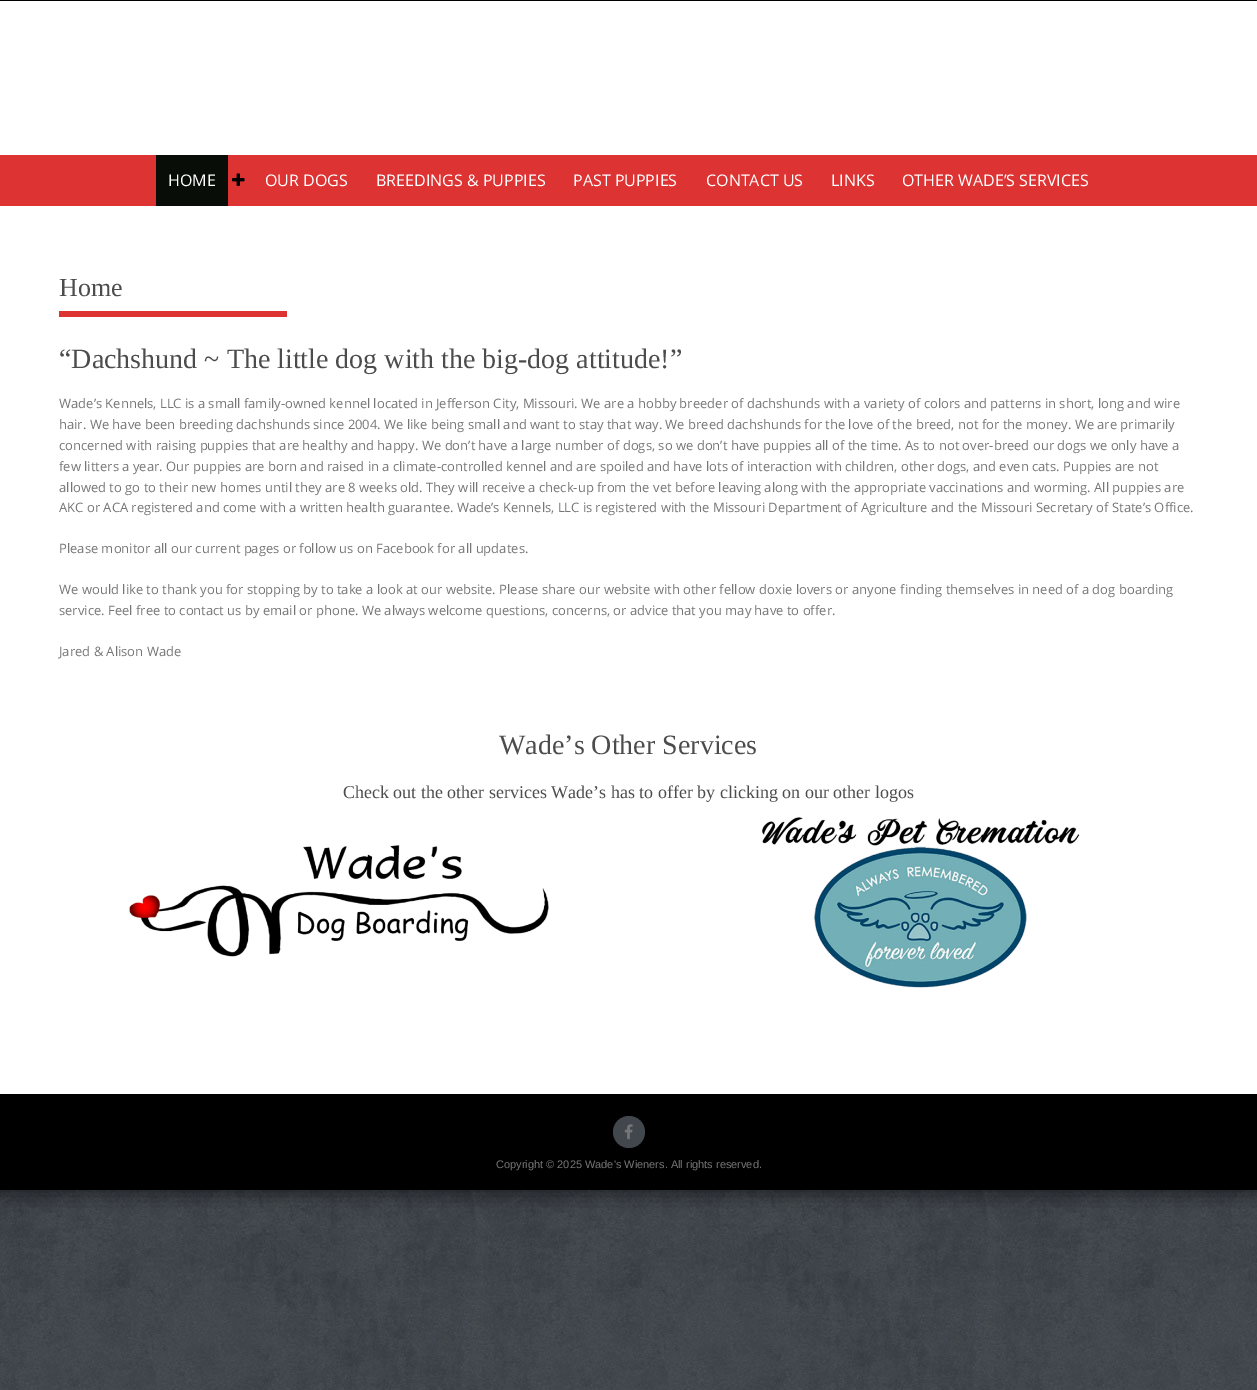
%!PS-Adobe-3.0
%%BoundingBox: 0 0 1257 1390
%%LanguageLevel: 3
%%Pages: 1
%%EndComments
%%BeginProlog
/setink { 3 { 255 div 3 1 roll } repeat setrgbcolor } def
/usefont { [ exch dup neg 0 0 3 -1 roll 0 0 ] selectfont } def
/drawtext { setink usefont moveto show } def
/fillbox { setink rectfill } def
/setalpha { dup .setfillconstantalpha .setstrokeconstantalpha } def
/disc { newpath 0 360 arc closepath } def
/rrect { 5 dict begin { /r /h /w /y /x } { exch def } forall
  x r add y moveto x w add y 2 copy h add r arct x w add y h add x 1 index r arct
  x y h add x y r arct x y 2 copy exch w add exch r arct closepath end } def
/softshadow { 12 dict begin { /a /b /q /h /w /y /x } { exch def } forall gsave /was 0 def
  9 -2 -9 { dup b mul 4 div /e exch def 1 sub .425 mul 2.718 exch exp 1 add a .99 .min exch div /now exch def
    1 1 now sub 1 was sub div sub setalpha /was now def
    w h .min e 2 mul add 0 gt { x e sub y e sub w e 2 mul add h e 2 mul add
      q e add b .6 mul add w h .min 2 div e add .min 0 .max rrect fill } if } for grestore end } def
/drawimage { 5 dict begin { /h /w /y /x /name } { exch def } forall
  gsave x y translate w h scale
  w h 8 [w 0 0 h 0 0] name (r) file false 3 colorimage grestore end } def
%%EndProlog
%%BeginSetup
<< /PageSize [1257 1390] /PageUsesTransparency true >> setpagedevice
%%EndSetup
%%Page: 1 1
0 .pushpdf14devicefilter
0 1390 translate 1 -1 scale
4 setmiterlimit
0 0 1257 1390 255 255 255 fillbox
(assets/img1.rgb) 0 1190 1257 200 drawimage
0 0 0 setink
-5 -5 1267 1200 0 10 0.5 softshadow
0 0 1257 1 0 0 0 fillbox
0 1 1257 154 255 255 255 fillbox
0 155 1257 51 221 51 51 fillbox
156 155 72 51 8 13 7 fillbox
(HOME) 168 186 /OpenSans-Regular 16 255 255 255 drawtext
(assets/img2.rgb) 232 173 13 13 drawimage
(OUR DOGS) 265 186 /OpenSans-Regular 16 255 255 255 drawtext
(BREEDINGS & PUPPIES) 376 186 /OpenSans-Regular 16 255 255 255 drawtext
(PAST PUPPIES) 573 186 /OpenSans-Regular 16 255 255 255 drawtext
(CONTACT US) 706 186 /OpenSans-Regular 16 255 255 255 drawtext
(LINKS) 831 186 /OpenSans-Regular 16 255 255 255 drawtext
(OTHER WADE’S SERVICES) 902 186 /OpenSans-Regular 16 255 255 255 drawtext
0 206 1257 888 255 255 255 fillbox
(Home) 59 296 /LiberationSerif-Regular 26 76 76 76 drawtext
59 311 228 6 221 51 51 fillbox
(“Dachshund ~ The little dog with the big-dog attitude!”) 59 368 /LiberationSerif-Regular 28 76 76 76 drawtext
(Wade’s Kennels, LLC is a small family-owned kennel located in Jefferson City, Missouri. We are a hobby breeder of dachshunds with a variety of colors and patterns in short, long and wire) 59 408 /OpenSans-Regular 13 118 118 118 drawtext
(hair. We have been breeding dachshunds since 2004. We like being small and want to stay that way. We breed dachshunds for the love of the breed, not for the money. We are primarily) 59 429 /OpenSans-Regular 13 118 118 118 drawtext
(concerned with raising puppies that are healthy and happy. We don’t have a large number of dogs, so we don’t have puppies all of the time. As to not over-breed our dogs we only have a) 59 450 /OpenSans-Regular 13 118 118 118 drawtext
(few litters a year. Our puppies are born and raised in a climate-controlled kennel and are spoiled and have lots of interaction with children, other dogs, and even cats. Puppies are not) 59 471 /OpenSans-Regular 13 118 118 118 drawtext
(allowed to go to their new homes until they are 8 weeks old. They will receive a check-up from the vet before leaving along with the appropriate vaccinations and worming. All puppies are) 59 492 /OpenSans-Regular 13 118 118 118 drawtext
(AKC or ACA registered and come with a written health guarantee. Wade’s Kennels, LLC is registered with the Missouri Department of Agriculture and the Missouri Secretary of State’s Office.) 59 512 /OpenSans-Regular 13 118 118 118 drawtext
(Please monitor all our current pages or follow us on Facebook for all updates.) 59 553 /OpenSans-Regular 13 118 118 118 drawtext
(We would like to thank you for stopping by to take a look at our website. Please share our website with other fellow doxie lovers or anyone finding themselves in need of a dog boarding) 59 594 /OpenSans-Regular 13 118 118 118 drawtext
(service. Feel free to contact us by email or phone. We always welcome questions, concerns, or advice that you may have to offer.) 59 615 /OpenSans-Regular 13 118 118 118 drawtext
(Jared & Alison Wade) 59 656 /OpenSans-Regular 13 118 118 118 drawtext
(Wade’s Other Services) 499 754 /LiberationSerif-Regular 28 76 76 76 drawtext
(Check out the other services Wade’s has to offer by clicking on our other logos) 343 798 /LiberationSerif-Regular 18 76 76 76 drawtext
(assets/img3.rgb) 129 845 420 112 drawimage
(assets/img4.rgb) 761 817 319 171 drawimage
0 1094 1257 96 0 0 0 fillbox
66 71 77 setink
629 1132 16 disc fill
(assets/img5.rgb) 624 1124 9 16 drawimage
(Copyright © 2025 Wade's Wieners. All rights reserved.) 496 1168 /LiberationSans-Regular 11 118 118 118 drawtext
.poppdf14devicefilter showpage
%%EOF
